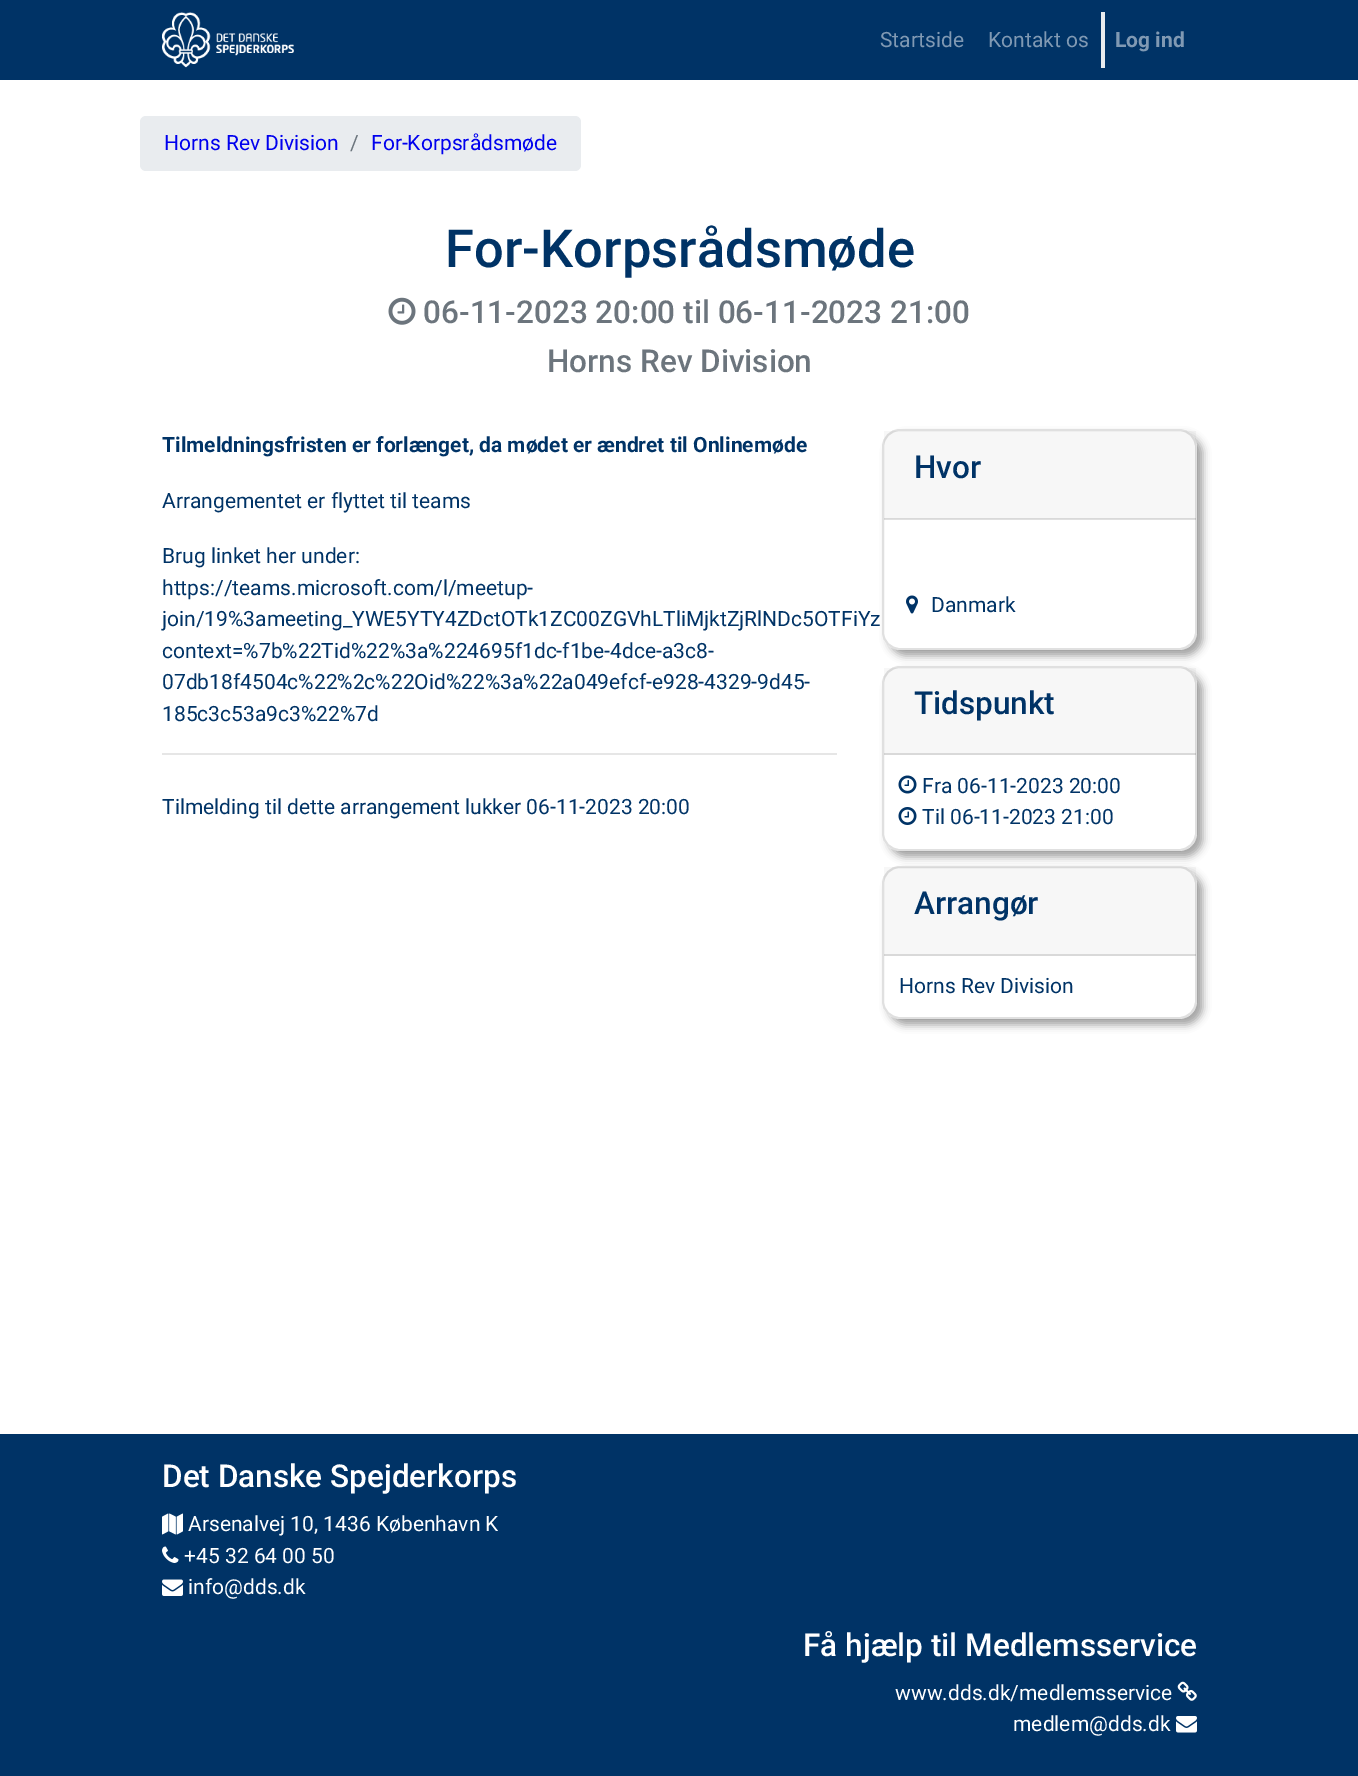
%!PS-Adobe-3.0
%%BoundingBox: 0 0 1358 1776
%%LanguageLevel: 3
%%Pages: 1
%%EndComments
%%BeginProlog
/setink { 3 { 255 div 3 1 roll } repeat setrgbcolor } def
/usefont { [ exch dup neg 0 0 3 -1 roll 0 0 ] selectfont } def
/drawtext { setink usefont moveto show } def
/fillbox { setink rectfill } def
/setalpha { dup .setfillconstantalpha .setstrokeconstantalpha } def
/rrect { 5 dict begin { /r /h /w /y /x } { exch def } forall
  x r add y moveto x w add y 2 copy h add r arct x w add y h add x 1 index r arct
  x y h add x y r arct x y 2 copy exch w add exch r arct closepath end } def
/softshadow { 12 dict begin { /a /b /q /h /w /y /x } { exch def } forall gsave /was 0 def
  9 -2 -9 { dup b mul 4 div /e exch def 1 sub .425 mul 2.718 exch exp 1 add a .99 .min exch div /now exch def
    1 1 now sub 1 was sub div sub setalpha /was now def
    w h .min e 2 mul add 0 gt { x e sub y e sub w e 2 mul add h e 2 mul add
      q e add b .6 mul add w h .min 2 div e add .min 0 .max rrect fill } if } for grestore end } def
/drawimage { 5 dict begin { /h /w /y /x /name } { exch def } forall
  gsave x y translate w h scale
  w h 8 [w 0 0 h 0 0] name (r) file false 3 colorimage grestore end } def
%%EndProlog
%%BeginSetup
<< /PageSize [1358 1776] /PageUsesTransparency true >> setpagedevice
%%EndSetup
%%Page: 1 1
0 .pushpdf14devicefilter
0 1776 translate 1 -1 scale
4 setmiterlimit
0 0 1358 1776 255 255 255 fillbox
0 0 1358 80 0 51 102 fillbox
(assets/img1.rgb) 162 12 132 56 drawimage
(Startside) 880 47 /Roboto-Regular 21 128 153 179 drawtext
(Kontakt os) 988 47 /Roboto-Regular 21 128 153 179 drawtext
1101 12 4 56 233 236 239 fillbox
(Log ind) 1115 47 /Roboto-Bold 21 128 153 179 drawtext
233 236 239 setink
140 116 441 55 6 rrect fill
(Horns Rev Division) 164 150 /Roboto-Regular 21 0 0 238 drawtext
(/) 350 150 /Roboto-Regular 21 108 117 125 drawtext
(For-Korpsrådsmøde) 371 150 /Roboto-Regular 21 0 0 238 drawtext
(For-Korpsrådsmøde) 445 267 /Roboto-Medium 52.5 0 51 102 drawtext
(assets/img2.rgb) 388 297 28 28 drawimage
(06-11-2023 20:00 til 06-11-2023 21:00) 423 323 /Roboto-Medium 31.5 108 117 125 drawtext
(Horns Rev Division) 547 372 /Roboto-Medium 31.5 108 117 125 drawtext
(Tilmeldningsfristen er forlænget, da mødet er ændret til Onlinemøde) 162 452 /Roboto-Bold 21 0 51 102 drawtext
(Arrangementet er flyttet til teams) 162 508 /Roboto-Regular 21 0 51 102 drawtext
(Brug linket her under:) 162 563 /Roboto-Regular 21 0 51 102 drawtext
(https://teams.microsoft.com/l/meetup-) 162 595 /Roboto-Regular 21 0 51 102 drawtext
(join/19%3ameeting_YWE5YTY4ZDctOTk1ZC00ZGVhLTliMjktZjRlNDc5OTFiYz) 162 626 /Roboto-Regular 21 0 51 102 drawtext
(context=%7b%22Tid%22%3a%224695f1dc-f1be-4dce-a3c8-) 162 658 /Roboto-Regular 21 0 51 102 drawtext
(07db18f4504c%22%2c%22Oid%22%3a%22a049efcf-e928-4329-9d45-) 162 689 /Roboto-Regular 21 0 51 102 drawtext
(185c3c53a9c3%22%7d) 162 721 /Roboto-Regular 21 0 51 102 drawtext
162 753 675 2 230 230 230 fillbox
(Tilmelding til dette arrangement lukker 06-11-2023 20:00) 162 814 /Roboto-Regular 21 0 51 102 drawtext
0 0 0 setink
888 435 315 221 18 4 0.35 softshadow
255 255 255 setink
882 429 315 221 18 rrect fill
0.12 setalpha
0 0 0 setink
2 setlinewidth
883 430 313 219 17 rrect stroke
0.03 setalpha
884 431 312 88 0 0 0 fillbox
0.12 setalpha
884 518 312 2 0 0 0 fillbox
1 setalpha
(Hvor) 914 478 /Roboto-Medium 31.5 0 51 102 drawtext
(assets/img3.rgb) 906 595 12 19 drawimage
(Danmark) 931 612 /Roboto-Regular 21 0 51 102 drawtext
0 0 0 setink
888 672 315 185 18 4 0.35 softshadow
255 255 255 setink
882 666 315 185 18 rrect fill
0.12 setalpha
0 0 0 setink
883 667 313 183 17 rrect stroke
0.03 setalpha
884 668 312 87 0 0 0 fillbox
0.12 setalpha
884 753 312 2 0 0 0 fillbox
1 setalpha
(Tidspunkt) 914 714 /Roboto-Medium 31.5 0 51 102 drawtext
(assets/img4.rgb) 898 775 19 19 drawimage
(Fra 06-11-2023 20:00) 922 793 /Roboto-Regular 21 0 51 102 drawtext
(assets/img5.rgb) 898 807 19 18 drawimage
(Til 06-11-2023 21:00) 922 824 /Roboto-Regular 21 0 51 102 drawtext
0 0 0 setink
888 872 315 153 18 4 0.35 softshadow
255 255 255 setink
882 866 315 153 18 rrect fill
0.12 setalpha
0 0 0 setink
883 867 313 151 17 rrect stroke
0.03 setalpha
884 867 312 89 0 0 0 fillbox
0.12 setalpha
884 954 312 2 0 0 0 fillbox
1 setalpha
(Arrangør) 914 914 /Roboto-Medium 31.5 0 51 102 drawtext
(Horns Rev Division) 899 993 /Roboto-Regular 21 0 51 102 drawtext
0 1434 1358 342 0 51 102 fillbox
(Det Danske Spejderkorps) 162 1487 /Roboto-Medium 31.5 255 255 255 drawtext
(assets/img6.rgb) 162 1513 21 22 drawimage
(Arsenalvej 10, 1436 København K) 188 1531 /Roboto-Regular 21 255 255 255 drawtext
(assets/img7.rgb) 162 1546 17 17 drawimage
(+45 32 64 00 50) 184 1563 /Roboto-Regular 21 255 255 255 drawtext
(assets/img8.rgb) 162 1579 21 17 drawimage
(info@dds.dk) 188 1594 /Roboto-Regular 21 255 255 255 drawtext
(Få hjælp til Medlemsservice) 803 1656 /Roboto-Medium 31.5 255 255 255 drawtext
(www.dds.dk/medlemsservice) 895 1700 /Roboto-Regular 21 255 255 255 drawtext
(assets/img9.rgb) 1177 1681 20 20 drawimage
(medlem@dds.dk) 1013 1731 /Roboto-Regular 21 255 255 255 drawtext
(assets/img10.rgb) 1176 1716 21 17 drawimage
.poppdf14devicefilter showpage
%%EOF
